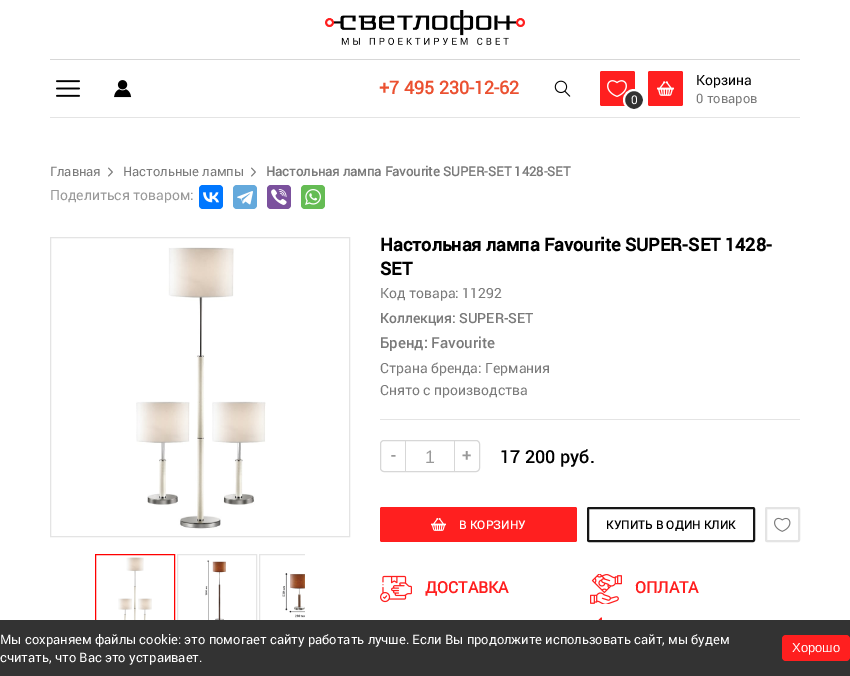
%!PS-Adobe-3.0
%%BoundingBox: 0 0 850 676
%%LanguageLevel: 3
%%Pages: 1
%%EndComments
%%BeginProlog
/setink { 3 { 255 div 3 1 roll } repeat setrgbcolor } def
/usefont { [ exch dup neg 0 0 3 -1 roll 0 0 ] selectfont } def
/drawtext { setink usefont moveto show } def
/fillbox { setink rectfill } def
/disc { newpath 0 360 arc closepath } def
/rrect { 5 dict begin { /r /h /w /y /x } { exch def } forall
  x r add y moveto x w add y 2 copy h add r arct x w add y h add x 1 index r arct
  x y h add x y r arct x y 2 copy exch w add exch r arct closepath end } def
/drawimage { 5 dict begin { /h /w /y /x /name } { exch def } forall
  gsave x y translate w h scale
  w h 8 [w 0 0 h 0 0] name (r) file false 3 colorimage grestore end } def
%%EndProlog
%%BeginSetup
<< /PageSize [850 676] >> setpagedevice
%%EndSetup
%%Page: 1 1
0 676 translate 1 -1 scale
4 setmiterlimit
0 0 850 676 255 255 255 fillbox
50 117 750 1 228 228 228 fillbox
50 59 750 1 215 215 215 fillbox
(assets/img1.rgb) 325 10 200 35 drawimage
(assets/img2.rgb) 56 80 24 17 drawimage
(assets/img3.rgb) 114 80 18 18 drawimage
(+7 495 230-12-62) 379 94 /Roboto-Bold 18 235 81 49 drawtext
(assets/img4.rgb) 554 80 17 17 drawimage
255 31 31 setink
600 71 35 35 2 rrect fill
(assets/img5.rgb) 607 80 20 17 drawimage
50 50 50 setink
634 100 10 disc gsave fill grestore
255 255 255 setink
2 setlinewidth
stroke
(0) 631 104 /Roboto-Regular 12 255 255 255 drawtext
255 31 31 setink
648 71 35 35 2 rrect fill
(assets/img6.rgb) 657 81 17 15 drawimage
(Корзина) 696 85 /Roboto-Regular 14 0 0 0 drawtext
(0 товаров) 696 103 /Roboto-Regular 13 122 122 122 drawtext
(Главная) 50 176 /Roboto-Regular 13 122 122 122 drawtext
(assets/img7.rgb) 108 167 5 10 drawimage
(Настольные лампы) 123 176 /Roboto-Regular 13 122 122 122 drawtext
(assets/img7.rgb) 251 167 5 10 drawimage
(Настольная лампа Favourite SUPER-SET 1428-SET) 266 176 /Roboto-Bold 13 122 122 122 drawtext
(Поделиться товаром:) 50 200 /Roboto-Regular 14 153 153 153 drawtext
0 119 255 setink
199 185 24 24 4 rrect fill
(assets/img8.rgb) 203 192 16 11 drawimage
100 169 220 setink
233 185 24 24 4 rrect fill
(assets/img9.rgb) 237 191 16 14 drawimage
123 81 157 setink
267 185 24 24 4 rrect fill
(assets/img10.rgb) 271 189 16 16 drawimage
101 188 84 setink
301 185 24 24 4 rrect fill
(assets/img11.rgb) 305 189 16 16 drawimage
228 228 228 setink
1 setlinewidth
50.5 237.5 299 299 rectstroke
(assets/img12.rgb) 136 247 130 282 drawimage
255 0 0 setink
95.5 554.5 79 81 rectstroke
(assets/img13.rgb) 118 557 34 63 drawimage
229 229 229 setink
177.5 554.5 79 79 rectstroke
(assets/img14.rgb) 205 560 24 60 drawimage
gsave
95 552 210 84 rectclip
259.5 554.5 79 79 rectstroke
grestore
(assets/img15.rgb) 282 573 23 45 drawimage
380 419 420 1 228 228 228 fillbox
(Настольная лампа Favourite SUPER-SET 1428-) 380 251 /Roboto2-Bold 18 0 0 0 drawtext
(SET) 380 275 /Roboto2-Bold 18 0 0 0 drawtext
(Код товара: 11292) 380 298 /Roboto-Regular 14 122 122 122 drawtext
(Коллекция: SUPER-SET) 380 323 /Roboto-Medium 14 122 122 122 drawtext
(Бренд: Favourite) 380 348 /Roboto-Medium 15 122 122 122 drawtext
(Страна бренда: Германия) 380 373 /Roboto-Regular 14 122 122 122 drawtext
(Снято с производства) 380 395 /Roboto-Regular 14 122 122 122 drawtext
215 215 215 setink
380.5 440.5 99 31 3.5 rrect stroke
(-) 391 461 /Roboto-Bold 16 153 153 153 drawtext
454 441 1 30 215 215 215 fillbox
405 441 1 30 215 215 215 fillbox
(1) 425 463 /LiberationSans-Regular 18 153 153 153 drawtext
(+) 462 461 /Roboto-Bold 16 153 153 153 drawtext
(17 200 руб.) 500 463 /Roboto-Medium 18 0 0 0 drawtext
255 31 31 setink
380 507 197 35 2 rrect fill
(assets/img16.rgb) 431 518 15 13 drawimage
(В КОРЗИНУ) 459 529 /Roboto-Medium 12 255 255 255 drawtext
22 22 22 setink
2 setlinewidth
588 508 166 33 1 rrect stroke
(КУПИТЬ В ОДИН КЛИК) 606 529 /Roboto-Medium 12 0 0 0 drawtext
228 228 228 setink
766 508 33 33 1 rrect stroke
(assets/img17.rgb) 774 517 17 15 drawimage
(assets/img18.rgb) 380 575 32 28 drawimage
(ДОСТАВКА) 425 593 /Roboto-Bold 16 255 31 31 drawtext
(assets/img19.rgb) 590 574 32 30 drawimage
(ОПЛАТА) 635 593 /Roboto-Bold 16 255 31 31 drawtext
gsave
590 617 12 10 rectclip
1 setlinecap
1 setlinejoin
591.5 622 moveto 594.5 625.5 lineto 601.5 618.5 lineto stroke
grestore
0 620 850 56 51 51 51 fillbox
(Мы сохраняем файлы cookie: это помогает сайту работать лучше. Если Вы продолжите использовать сайт, мы будем) 0 644 /Roboto-Regular 13 255 255 255 drawtext
(считать, что Вас это устраивает.) 0 662 /Roboto-Regular 13 255 255 255 drawtext
255 31 31 setink
782 635 68 26 4 rrect fill
(Хорошо) 792 652 /LiberationSans-Regular 13 255 255 255 drawtext
showpage
%%EOF
